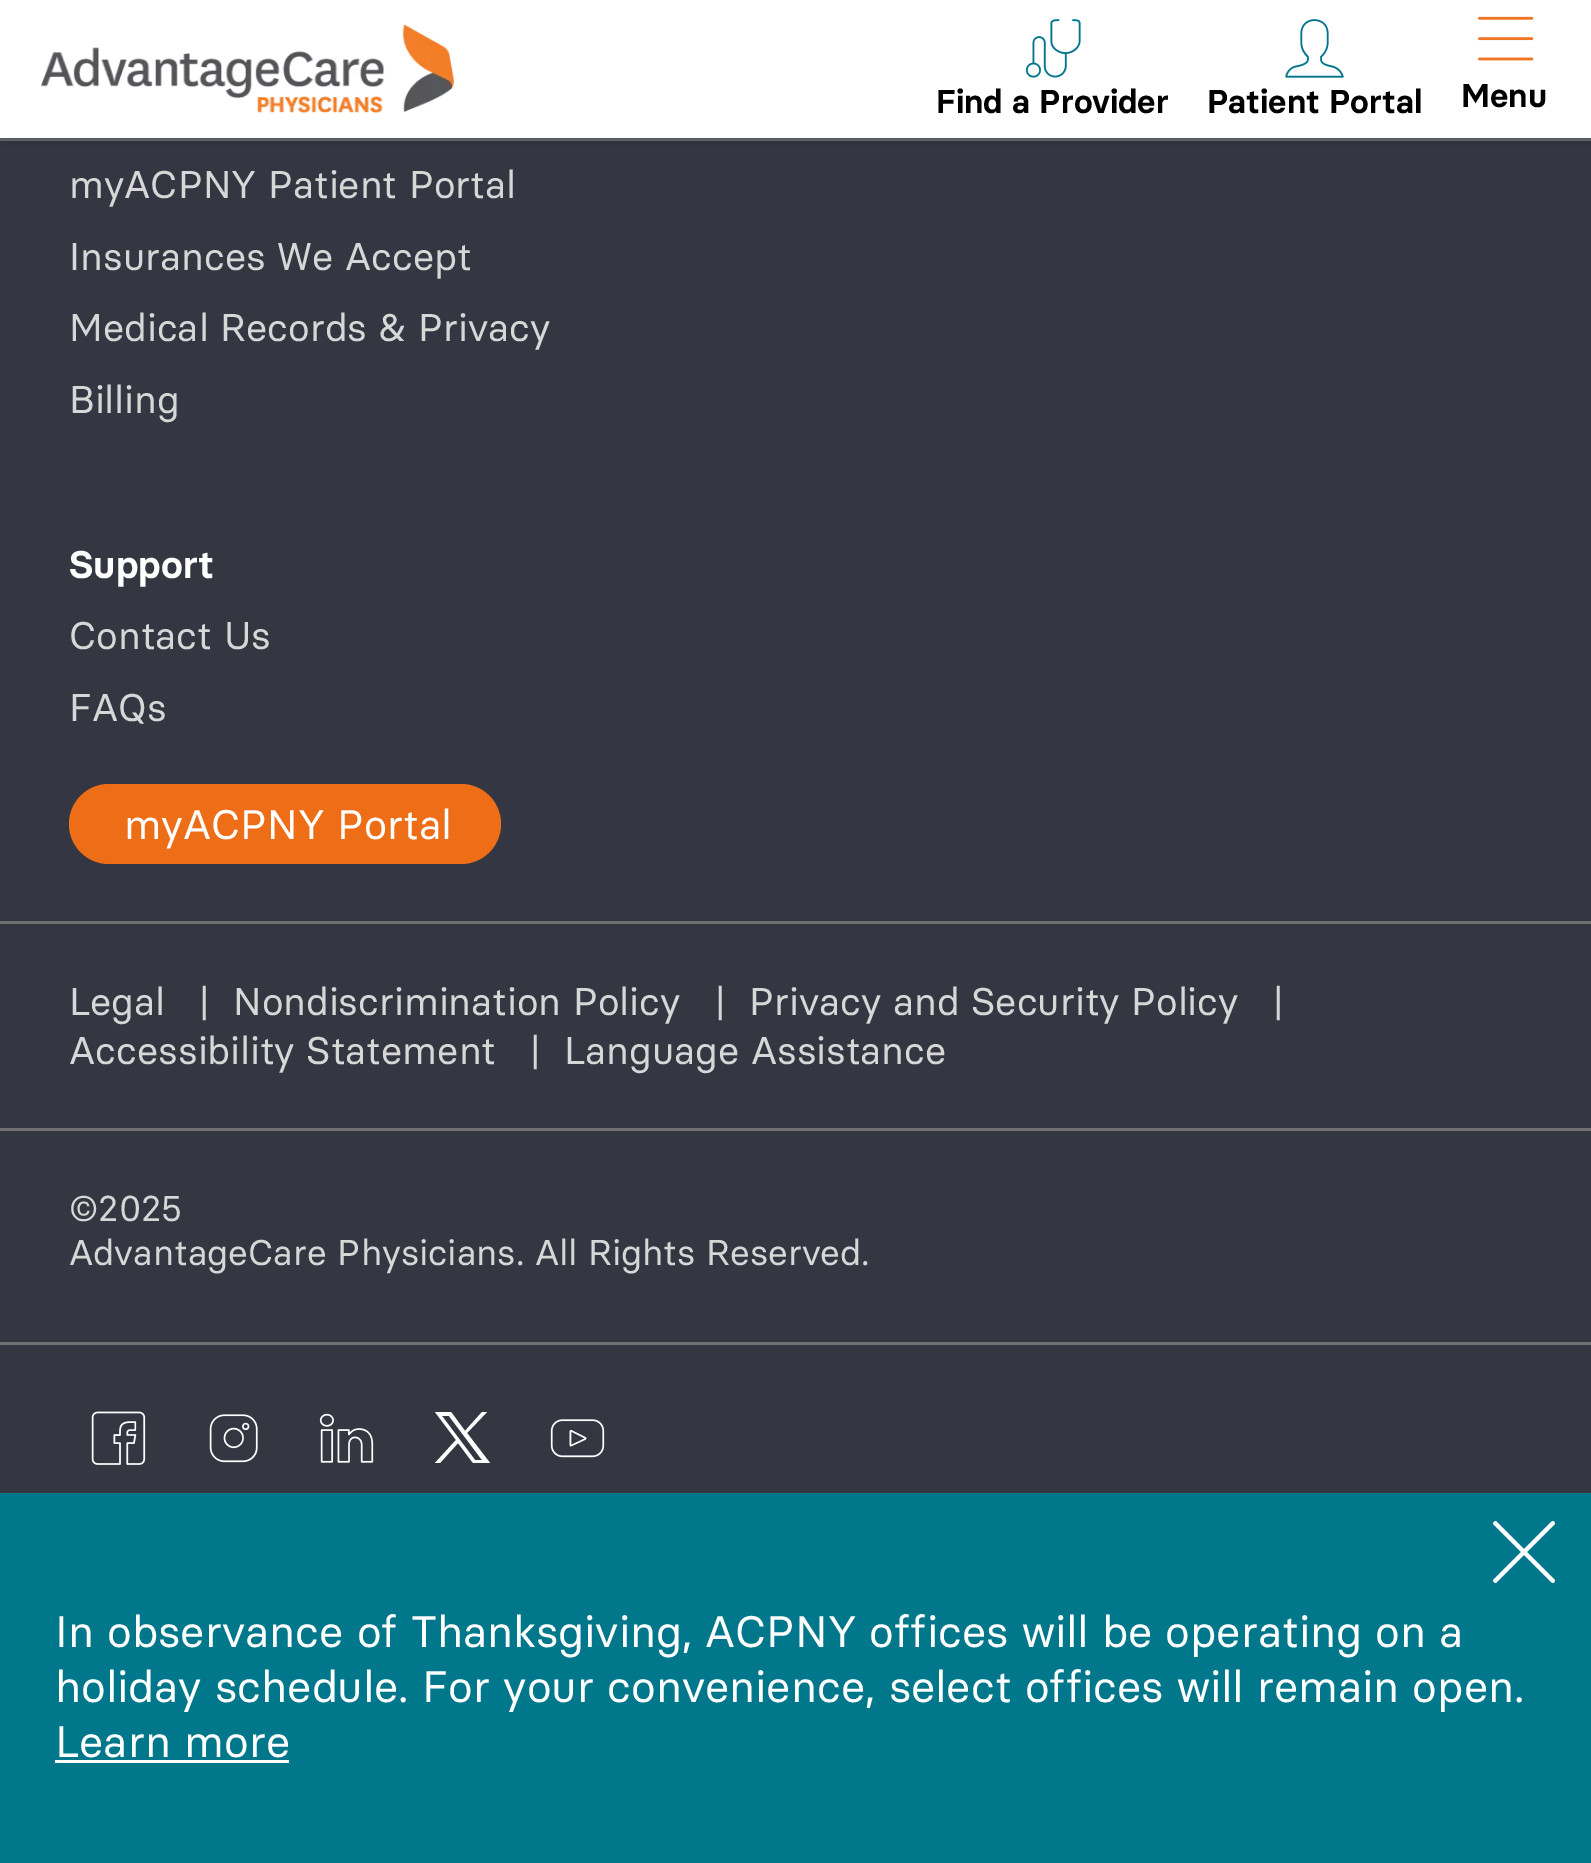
%!PS-Adobe-3.0
%%BoundingBox: 0 0 1591 1863
%%LanguageLevel: 3
%%Pages: 1
%%EndComments
%%BeginProlog
/setink { 3 { 255 div 3 1 roll } repeat setrgbcolor } def
/usefont { [ exch dup neg 0 0 3 -1 roll 0 0 ] selectfont } def
/drawtext { setink usefont moveto show } def
/fillbox { setink rectfill } def
/setalpha { dup .setfillconstantalpha .setstrokeconstantalpha } def
/rrect { 5 dict begin { /r /h /w /y /x } { exch def } forall
  x r add y moveto x w add y 2 copy h add r arct x w add y h add x 1 index r arct
  x y h add x y r arct x y 2 copy exch w add exch r arct closepath end } def
/softshadow { 12 dict begin { /a /b /q /h /w /y /x } { exch def } forall gsave /was 0 def
  9 -2 -9 { dup b mul 4 div /e exch def 1 sub .425 mul 2.718 exch exp 1 add a .99 .min exch div /now exch def
    1 1 now sub 1 was sub div sub setalpha /was now def
    w h .min e 2 mul add 0 gt { x e sub y e sub w e 2 mul add h e 2 mul add
      q e add b .6 mul add w h .min 2 div e add .min 0 .max rrect fill } if } for grestore end } def
/drawimage { 5 dict begin { /h /w /y /x /name } { exch def } forall
  gsave x y translate w h scale
  w h 8 [w 0 0 h 0 0] name (r) file false 3 colorimage grestore end } def
%%EndProlog
%%BeginSetup
<< /PageSize [1591 1863] /PageUsesTransparency true >> setpagedevice
%%EndSetup
%%Page: 1 1
0 .pushpdf14devicefilter
0 1863 translate 1 -1 scale
4 setmiterlimit
0 0 1591 1863 52 55 65 fillbox
0 138 1591 3 113 115 122 fillbox
0 0 0 setink
0 0 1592 138 0 4 0.5 softshadow
0 0 1591 138 255 255 255 fillbox
(assets/img1.rgb) 41 24 413 89 drawimage
(assets/img2.rgb) 1025 19 56 59 drawimage
(Find a Provider) 936 113 /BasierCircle-SemiBold 33 0 0 0 drawtext
(assets/img3.rgb) 1285 19 59 59 drawimage
(Patient Portal) 1207 113 /BasierCircle-SemiBold 33 0 0 0 drawtext
(assets/img4.rgb) 1478 16 56 45 drawimage
(Menu) 1461 107 /BasierCircle-SemiBold 33 0 0 0 drawtext
0 921 1591 3 112 112 112 fillbox
(myACPNY Patient Portal) 69 198 /BasierCircle-Regular 38.5 215 215 215 drawtext
(Insurances We Accept) 69 270 /BasierCircle-Regular 38.5 215 215 215 drawtext
(Medical Records & Privacy) 69 341 /BasierCircle-Regular 38.5 215 215 215 drawtext
(Billing) 69 413 /BasierCircle-Regular 38.5 215 215 215 drawtext
(Support) 69 578 /BasierCircle-SemiBold 38.5 255 255 255 drawtext
(Contact Us) 69 649 /BasierCircle-Regular 38.5 215 215 215 drawtext
(FAQs) 69 721 /BasierCircle-Regular 38.5 215 215 215 drawtext
238 109 23 setink
69 784 432 80 40 rrect fill
(myACPNY Portal) 124 839 /BasierCircle-Regular 41.25 255 255 255 drawtext
0 1128 1591 3 112 112 112 fillbox
(Legal) 69 1015 /BasierCircle-Regular 38.5 215 215 215 drawtext
(|) 199 1015 /BasierCircle-Regular 38.5 215 215 215 drawtext
(Nondiscrimination Policy) 233 1015 /BasierCircle-Regular 38.5 215 215 215 drawtext
(|) 715 1015 /BasierCircle-Regular 38.5 215 215 215 drawtext
(Privacy and Security Policy) 749 1015 /BasierCircle-Regular 38.5 215 215 215 drawtext
(|) 1273 1015 /BasierCircle-Regular 38.5 215 215 215 drawtext
(Accessibility Statement) 69 1064 /BasierCircle-Regular 38.5 215 215 215 drawtext
(|) 530 1064 /BasierCircle-Regular 38.5 215 215 215 drawtext
(Language Assistance) 564 1064 /BasierCircle-Regular 38.5 215 215 215 drawtext
0 1342 1591 3 112 112 112 fillbox
(©2025) 69 1221 /BasierCircle-Regular 35.75 215 215 215 drawtext
(AdvantageCare Physicians. All Rights Reserved.) 69 1265 /BasierCircle-Regular 35.75 215 215 215 drawtext
(assets/img5.rgb) 91 1411 55 54 drawimage
(assets/img6.rgb) 209 1414 49 49 drawimage
(assets/img7.rgb) 319 1413 55 50 drawimage
255 255 255 setink
435 1412 moveto 456 1440 lineto 435 1463 lineto 440 1463 lineto 458 1443 lineto 473 1463 lineto 490 1463 lineto 467 1433 lineto 487 1412 lineto 482 1412 lineto 465 1431 lineto 451 1412 lineto closepath 442 1416 moveto 449 1416 lineto 482 1460 lineto 475 1460 lineto closepath fill
(assets/img8.rgb) 550 1419 55 39 drawimage
0 1493 1591 370 0 119 139 fillbox
255 255 255 setink
1496 1583 moveto 1494 1583 1493 1581 1493 1580 curveto 1551 1522 lineto 1553 1521 lineto 1554 1521 1555 1523 1555 1524 curveto 1497 1582 lineto closepath 1553 1583 moveto 1551 1582 lineto 1493 1524 lineto 1493 1523 1494 1521 1496 1521 curveto 1497 1522 lineto 1555 1580 lineto 1555 1581 1554 1583 1553 1583 curveto closepath fill
(In observance of Thanksgiving, ACPNY offices will be operating on a) 55 1647 /BasierCircle-Regular 44 255 255 255 drawtext
(holiday schedule. For your convenience, select offices will remain open.) 55 1702 /BasierCircle-Regular 44 255 255 255 drawtext
(Learn more) 55 1757 /BasierCircle-Regular 44 255 255 255 drawtext
55 1760 234 3 255 255 255 fillbox
.poppdf14devicefilter showpage
%%EOF
